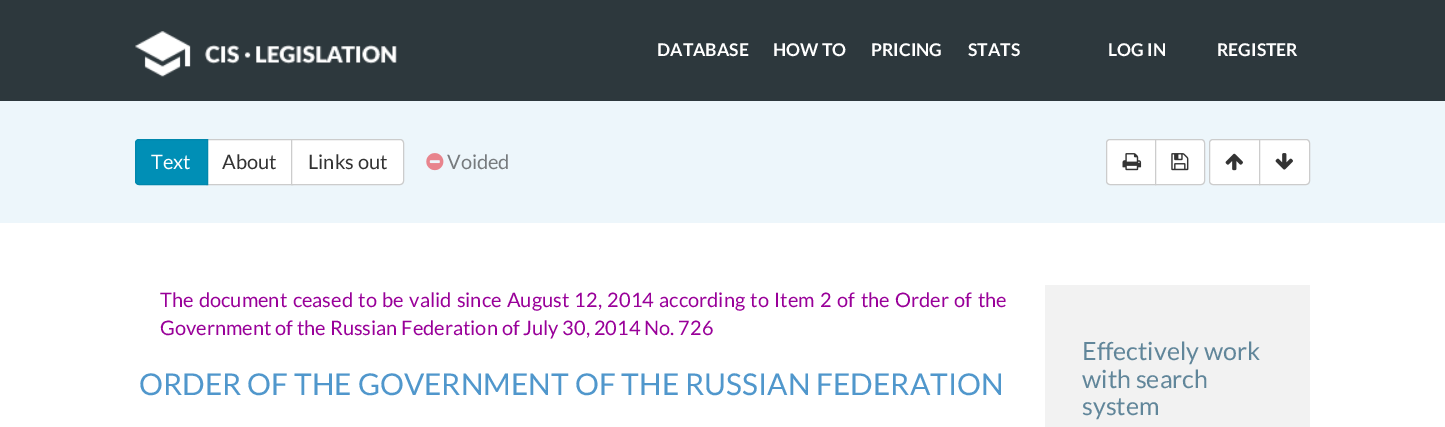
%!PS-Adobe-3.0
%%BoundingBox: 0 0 1445 427
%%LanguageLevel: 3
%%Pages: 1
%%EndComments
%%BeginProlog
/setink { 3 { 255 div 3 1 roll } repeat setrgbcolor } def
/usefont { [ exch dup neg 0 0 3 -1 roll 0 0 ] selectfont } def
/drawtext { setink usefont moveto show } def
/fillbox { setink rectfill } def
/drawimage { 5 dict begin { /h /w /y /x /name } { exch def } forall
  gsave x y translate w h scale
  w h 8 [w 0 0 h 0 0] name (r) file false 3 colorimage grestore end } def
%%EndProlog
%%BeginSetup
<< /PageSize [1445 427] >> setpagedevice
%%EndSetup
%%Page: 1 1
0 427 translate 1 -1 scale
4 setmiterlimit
0 0 1445 427 255 255 255 fillbox
0 0 1445 101 45 56 61 fillbox
(assets/img1.rgb) 135 31 262 46 drawimage
(DATABASE) 657 56 /Lato-Bold 17.5 255 255 255 drawtext
(HOW TO) 773 56 /Lato-Bold 17.5 255 255 255 drawtext
(PRICING) 871 56 /Lato-Bold 17.5 255 255 255 drawtext
(STATS) 968 56 /Lato-Bold 17.5 255 255 255 drawtext
(LOG IN) 1108 56 /Lato-Bold 17.5 255 255 255 drawtext
(REGISTER) 1217 56 /Lato-Bold 17.5 255 255 255 drawtext
0 101 1445 122 237 246 251 fillbox
208 140 83 44 255 255 255 fillbox
204 204 204 setink
206.5 139.5 86 45 rectstroke
0 143 182 setink
139 139.5 moveto 207.5 139.5 lineto 207.5 184.5 lineto 139 184.5 lineto 137 184.5 135.5 183 135.5 181 curveto 135.5 143 lineto 135.5 141 137 139.5 139 139.5 curveto closepath gsave fill grestore
0 135 172 setink
stroke
(Text) 151 169 /Lato-Regular 20 255 255 255 drawtext
(About) 222 169 /Lato-Regular 20 51 51 51 drawtext
255 255 255 setink
291.5 139.5 moveto 400 139.5 lineto 402 139.5 403.5 141 403.5 143 curveto 403.5 181 lineto 403.5 183 402 184.5 400 184.5 curveto 291.5 184.5 lineto closepath gsave fill grestore
204 204 204 setink
stroke
(Links out) 308 169 /Lato-Regular 20 51 51 51 drawtext
(assets/img2.rgb) 426 153 18 18 drawimage
(Voided) 447 169 /Lato-Regular 20 119 123 126 drawtext
255 255 255 setink
1110 139.5 moveto 1155.5 139.5 lineto 1155.5 184.5 lineto 1110 184.5 lineto 1108 184.5 1106.5 183 1106.5 181 curveto 1106.5 143 lineto 1106.5 141 1108 139.5 1110 139.5 curveto closepath gsave fill grestore
204 204 204 setink
stroke
(assets/img3.rgb) 1122 153 20 18 drawimage
255 255 255 setink
1155.5 139.5 moveto 1201 139.5 lineto 1203 139.5 1204.5 141 1204.5 143 curveto 1204.5 181 lineto 1204.5 183 1203 184.5 1201 184.5 curveto 1155.5 184.5 lineto closepath gsave fill grestore
204 204 204 setink
stroke
(assets/img4.rgb) 1171 153 18 18 drawimage
255 255 255 setink
1213 139.5 moveto 1259.5 139.5 lineto 1259.5 184.5 lineto 1213 184.5 lineto 1211 184.5 1209.5 183 1209.5 181 curveto 1209.5 143 lineto 1209.5 141 1211 139.5 1213 139.5 curveto closepath gsave fill grestore
204 204 204 setink
stroke
(assets/img5.rgb) 1225 153 18 18 drawimage
255 255 255 setink
1259.5 139.5 moveto 1306 139.5 lineto 1308 139.5 1309.5 141 1309.5 143 curveto 1309.5 181 lineto 1309.5 183 1308 184.5 1306 184.5 curveto 1259.5 184.5 lineto closepath gsave fill grestore
204 204 204 setink
stroke
(assets/img6.rgb) 1275 153 18 17 drawimage
153 0 153 setink
160 307 moveto 1.6 0 32 (The document ceased to be valid since August 12, 2014 according to Item 2 of the Order of the) widthshow
(Government of the Russian Federation of July 30, 2014 No. 726) 160 335 /Lato-Regular 20 153 0 153 drawtext
(ORDER OF THE GOVERNMENT OF THE RUSSIAN FEDERATION) 139 395 /Lato-Regular 30 80 151 204 drawtext
1045 285 265 142 242 242 242 fillbox
(Effectively work) 1082 360 /Lato-Regular 25 97 134 154 drawtext
(with search) 1082 388 /Lato-Regular 25 97 134 154 drawtext
(system) 1082 415 /Lato-Regular 25 97 134 154 drawtext
showpage
%%EOF
